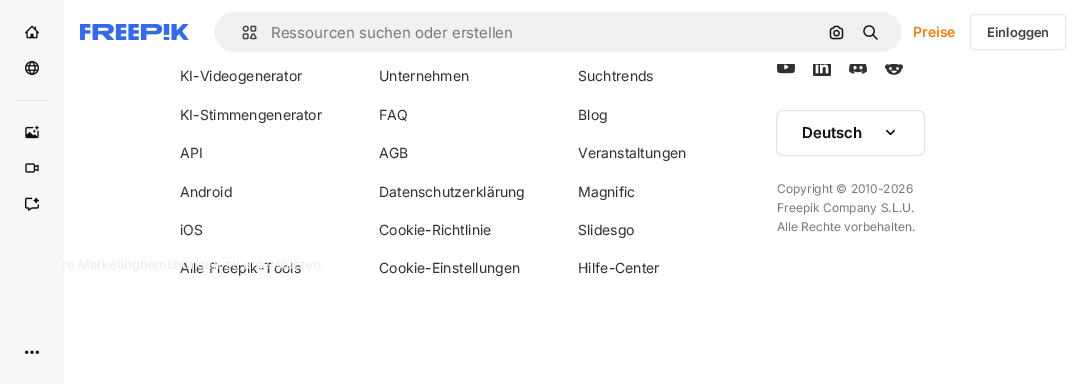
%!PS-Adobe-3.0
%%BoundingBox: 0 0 1082 384
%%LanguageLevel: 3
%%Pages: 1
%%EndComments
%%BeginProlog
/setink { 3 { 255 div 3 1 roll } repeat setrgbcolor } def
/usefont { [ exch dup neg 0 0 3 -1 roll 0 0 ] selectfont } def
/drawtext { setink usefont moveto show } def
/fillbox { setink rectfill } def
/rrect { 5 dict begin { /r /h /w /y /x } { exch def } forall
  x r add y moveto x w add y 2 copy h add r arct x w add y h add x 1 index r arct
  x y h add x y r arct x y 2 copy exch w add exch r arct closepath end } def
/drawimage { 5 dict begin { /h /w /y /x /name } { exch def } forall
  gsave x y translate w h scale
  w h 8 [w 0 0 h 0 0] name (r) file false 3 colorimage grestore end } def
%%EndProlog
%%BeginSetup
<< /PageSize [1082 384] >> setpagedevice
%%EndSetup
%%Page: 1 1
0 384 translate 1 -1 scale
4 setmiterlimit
0 0 1082 384 255 255 255 fillbox
0 0 64 384 247 247 247 fillbox
(assets/img1.rgb) 25 25 14 14 drawimage
(assets/img2.rgb) 25 61 14 14 drawimage
16 100 32 1 224 224 224 fillbox
(assets/img3.rgb) 25 125 14 14 drawimage
(assets/img4.rgb) 25 163 14 10 drawimage
(assets/img5.rgb) 25 197 14 14 drawimage
(assets/img6.rgb) 25 350 14 4 drawimage
(assets/img7.rgb) 80 24 109 16 drawimage
240 240 240 setink
213.5 11.5 689 41 20.5 rrect gsave fill grestore
255 255 255 setink
stroke
(assets/img8.rgb) 242 25 15 15 drawimage
(Ressourcen suchen oder erstellen) 271 38 /Inter-Regular 15 120 120 120 drawtext
(assets/img9.rgb) 829 25 15 15 drawimage
(assets/img10.rgb) 863 25 15 15 drawimage
(Preise) 913 37 /Inter-SemiBold 14 234 126 17 drawtext
231 231 231 setink
970.5 14.5 95 35 3.5 rrect stroke
(Einloggen) 987 37 /Inter-SemiBold 13 66 66 66 drawtext
(KI-Videogenerator) 180 81 /Inter-Regular 14 48 48 48 drawtext
(KI-Stimmengenerator) 180 120 /Inter-Regular 14 48 48 48 drawtext
(API) 180 158 /Inter-Regular 14 48 48 48 drawtext
(Android) 180 197 /Inter-Regular 14 48 48 48 drawtext
(iOS) 180 235 /Inter-Regular 14 48 48 48 drawtext
(Alle Freepik-Tools) 180 273 /Inter-Regular 14 48 48 48 drawtext
(Unternehmen) 379 81 /Inter-Regular 14 48 48 48 drawtext
(FAQ) 379 120 /Inter-Regular 14 48 48 48 drawtext
(AGB) 379 158 /Inter-Regular 14 48 48 48 drawtext
(Datenschutzerklärung) 379 197 /Inter-Regular 14 48 48 48 drawtext
(Cookie-Richtlinie) 379 235 /Inter-Regular 14 48 48 48 drawtext
(Cookie-Einstellungen) 379 273 /Inter-Regular 14 48 48 48 drawtext
(Suchtrends) 578 81 /Inter-Regular 14 48 48 48 drawtext
(Blog) 578 120 /Inter-Regular 14 48 48 48 drawtext
(Veranstaltungen) 578 158 /Inter-Regular 14 48 48 48 drawtext
(Magnific) 578 197 /Inter-Regular 14 48 48 48 drawtext
(Slidesgo) 578 235 /Inter-Regular 14 48 48 48 drawtext
(Hilfe-Center) 578 273 /Inter-Regular 14 48 48 48 drawtext
(assets/img11.rgb) 777 64 18 10 drawimage
(assets/img12.rgb) 813 64 18 12 drawimage
(assets/img13.rgb) 849 64 18 10 drawimage
(assets/img14.rgb) 885 64 18 11 drawimage
230 230 230 setink
776.5 110.5 148 45 6.5 rrect stroke
(Deutsch) 802 138 /Inter-SemiBold 15 13 13 13 drawtext
(assets/img15.rgb) 886 129 9 7 drawimage
(Copyright © 2010-2026) 777 193 /Inter-Regular 12 120 120 120 drawtext
(Freepik Company S.L.U.) 777 212 /Inter-Regular 12 120 120 120 drawtext
(Alle Rechte vorbehalten.) 777 231 /Inter-Regular 12 120 120 120 drawtext
(re Marketingbemühungen zu unterstützen.) 62 269 /Inter-Regular 13 236 236 236 drawtext
showpage
%%EOF
